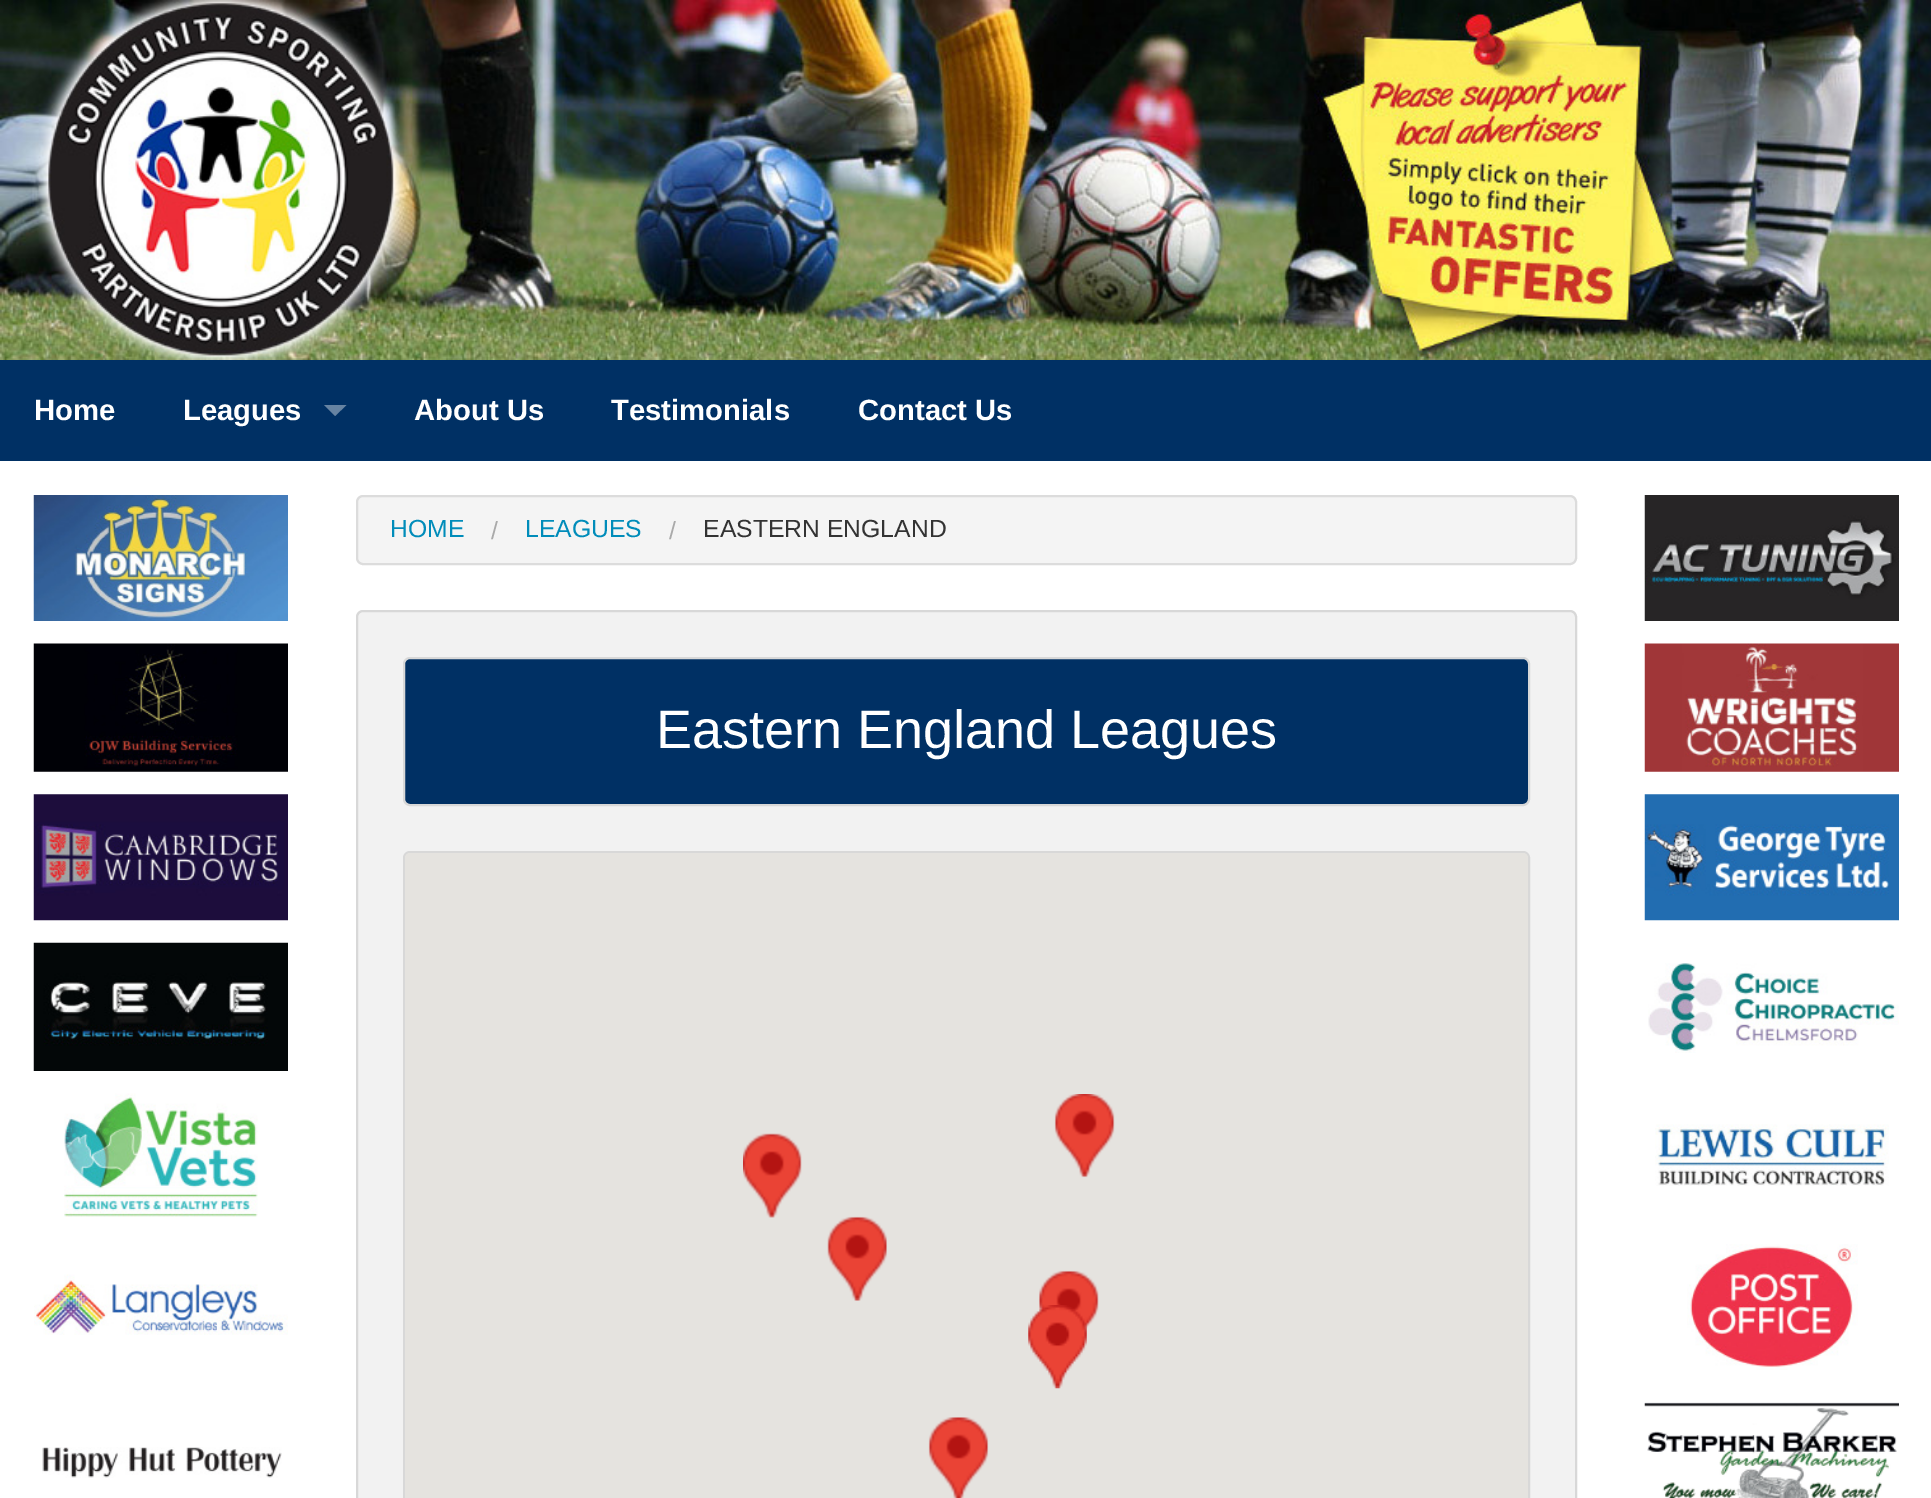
%!PS-Adobe-3.0
%%BoundingBox: 0 0 1931 1498
%%LanguageLevel: 3
%%Pages: 1
%%EndComments
%%BeginProlog
/setink { 3 { 255 div 3 1 roll } repeat setrgbcolor } def
/usefont { [ exch dup neg 0 0 3 -1 roll 0 0 ] selectfont } def
/drawtext { setink usefont moveto show } def
/fillbox { setink rectfill } def
/rrect { 5 dict begin { /r /h /w /y /x } { exch def } forall
  x r add y moveto x w add y 2 copy h add r arct x w add y h add x 1 index r arct
  x y h add x y r arct x y 2 copy exch w add exch r arct closepath end } def
/drawimage { 5 dict begin { /h /w /y /x /name } { exch def } forall
  gsave x y translate w h scale
  w h 8 [w 0 0 h 0 0] name (r) file false 3 colorimage grestore end } def
%%EndProlog
%%BeginSetup
<< /PageSize [1931 1498] >> setpagedevice
%%EndSetup
%%Page: 1 1
0 1498 translate 1 -1 scale
4 setmiterlimit
0 0 1931 1498 255 255 255 fillbox
(assets/img1.rgb) 0 0 1931 360 drawimage
0 360 1931 101 0 48 100 fillbox
(Home) 34 420 /LiberationSans-Bold 29.25 255 255 255 drawtext
(Leagues) 183 420 /LiberationSans-Bold 29.25 255 255 255 drawtext
102 131 162 setink
324 405 moveto 346.5 405 lineto 335 416 lineto closepath fill
(About Us) 414 420 /LiberationSans-Bold 29.25 255 255 255 drawtext
(Testimonials) 611 420 /LiberationSans-Bold 29.25 255 255 255 drawtext
(Contact Us) 858 420 /LiberationSans-Bold 29.25 255 255 255 drawtext
(assets/img2.rgb) 33 495 255 126 drawimage
(assets/img3.rgb) 33 643 255 129 drawimage
(assets/img4.rgb) 33 794 255 127 drawimage
(assets/img5.rgb) 33 942 255 129 drawimage
(assets/img6.rgb) 64 1093 194 124 drawimage
(assets/img7.rgb) 34 1274 254 61 drawimage
(assets/img8.rgb) 42 1447 240 31 drawimage
244 244 244 setink
357 496 1219 68 6 rrect gsave fill grestore
220 220 220 setink
2 setlinewidth
stroke
(HOME) 390 537 /LiberationSans-Regular 24.75 0 140 186 drawtext
(/) 491 539 /LiberationSans-Regular 24.75 170 170 170 drawtext
(LEAGUES) 525 537 /LiberationSans-Regular 24.75 0 140 186 drawtext
(/) 669 539 /LiberationSans-Regular 24.75 170 170 170 drawtext
(EASTERN ENGLAND) 703 537 /LiberationSans-Regular 24.75 51 51 51 drawtext
242 242 242 setink
357 611 1219 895 6 rrect gsave fill grestore
216 216 216 setink
stroke
0 48 100 setink
404 658 1125 147 6 rrect gsave fill grestore
216 216 216 setink
stroke
(Eastern England Leagues) 656 748 /LiberationSans-Regular 54 255 255 255 drawtext
216 216 216 setink
404 852 1125 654 6 rrect stroke
229 227 223 setink
405 853 1123 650 5 rrect fill
(assets/img9.rgb) 743 1133 59 85 drawimage
(assets/img10.rgb) 1054 1094 61 84 drawimage
(assets/img11.rgb) 827 1216 60 85 drawimage
(assets/img12.rgb) 1039 1270 60 62 drawimage
(assets/img13.rgb) 1028 1305 59 84 drawimage
(assets/img14.rgb) 928 1417 61 81 drawimage
(assets/img15.rgb) 1644 495 255 126 drawimage
(assets/img16.rgb) 1644 643 255 129 drawimage
(assets/img17.rgb) 1644 794 255 127 drawimage
(assets/img18.rgb) 1648 963 251 90 drawimage
(assets/img19.rgb) 1655 1124 234 62 drawimage
(assets/img20.rgb) 1687 1244 171 126 drawimage
(assets/img21.rgb) 1644 1402 255 96 drawimage
showpage
%%EOF
